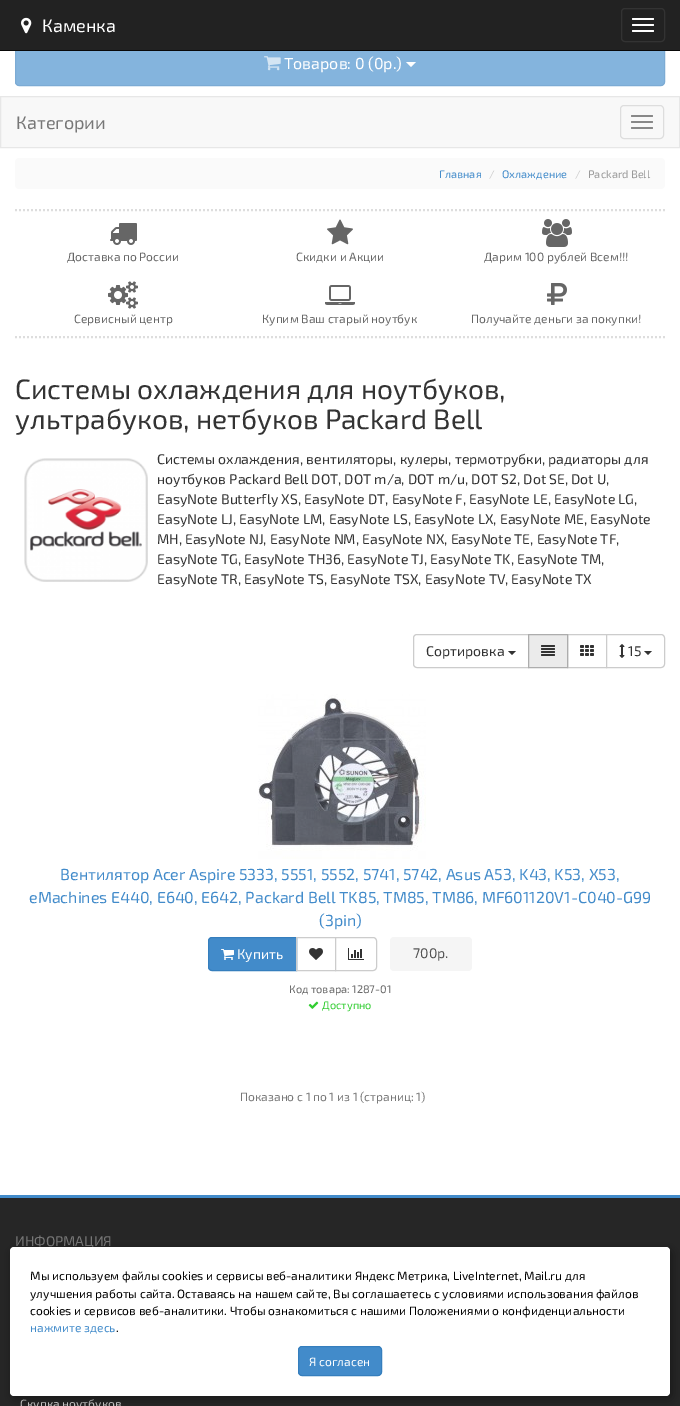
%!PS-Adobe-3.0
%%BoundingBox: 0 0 680 1406
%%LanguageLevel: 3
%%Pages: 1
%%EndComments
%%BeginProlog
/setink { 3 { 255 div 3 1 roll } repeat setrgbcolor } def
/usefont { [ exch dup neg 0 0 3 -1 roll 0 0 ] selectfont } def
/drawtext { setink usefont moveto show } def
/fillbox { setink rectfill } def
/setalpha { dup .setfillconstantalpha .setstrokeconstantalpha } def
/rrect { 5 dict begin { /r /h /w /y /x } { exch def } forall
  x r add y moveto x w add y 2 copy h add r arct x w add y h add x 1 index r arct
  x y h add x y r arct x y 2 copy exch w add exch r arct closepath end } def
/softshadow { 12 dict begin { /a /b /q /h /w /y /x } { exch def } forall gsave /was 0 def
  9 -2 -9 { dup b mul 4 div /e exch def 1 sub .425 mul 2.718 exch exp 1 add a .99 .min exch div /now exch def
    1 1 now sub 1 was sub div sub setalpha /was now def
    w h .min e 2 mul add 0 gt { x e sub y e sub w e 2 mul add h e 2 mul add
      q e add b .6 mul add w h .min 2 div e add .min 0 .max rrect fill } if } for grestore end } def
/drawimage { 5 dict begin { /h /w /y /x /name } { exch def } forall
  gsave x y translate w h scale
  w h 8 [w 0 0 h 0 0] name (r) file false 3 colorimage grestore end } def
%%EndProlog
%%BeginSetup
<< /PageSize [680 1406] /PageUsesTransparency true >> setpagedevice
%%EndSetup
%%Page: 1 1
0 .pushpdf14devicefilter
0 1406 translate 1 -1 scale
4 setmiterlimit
0 0 680 1406 255 255 255 fillbox
132 180 221 setink
15.5 40.5 649 45 3.5 rrect gsave fill grestore
124 171 212 setink
stroke
0 0 680 50 34 34 34 fillbox
0 50 680 1 8 8 8 fillbox
(assets/img1.rgb) 21 17 11 17 drawimage
(Каменка) 42 32 /Exo2-Regular 18 255 255 255 drawtext
51 51 51 setink
621.5 8.5 43 33 3.5 rrect stroke
255 255 255 setink
632 18 22 2 1 rrect fill
632 24 22 2 1 rrect fill
632 30 22 2 1 rrect fill
(assets/img2.rgb) 264 56 17 15 drawimage
(Товаров: 0 \(0р.\)) 284 69 /Exo2-Regular 16 255 255 255 drawtext
406 62 moveto 416 62 lineto 411 67 lineto closepath fill
248 248 248 setink
0.5 96.5 moveto 679.5 96.5 lineto 679.5 147.5 lineto 0.5 147.5 lineto closepath gsave fill grestore
231 231 231 setink
stroke
(Категории) 16 129 /Exo2-Regular 18 119 119 119 drawtext
221 221 221 setink
620.5 105.5 43 33 3.5 rrect stroke
136 136 136 setink
631 115 22 2 1 rrect fill
631 121 22 2 1 rrect fill
631 127 22 2 1 rrect fill
250 250 250 setink
15 158 650 31 4 rrect fill
(Главная) 439 178 /Exo2-Regular 11 66 139 202 drawtext
(/) 489 178 /Exo2-Regular 11 204 204 204 drawtext
(Охлаждение) 502 178 /Exo2-Regular 11 66 139 202 drawtext
(/) 575 178 /Exo2-Regular 11 204 204 204 drawtext
(Packard Bell) 588 178 /Exo2-Regular 11 153 153 153 drawtext
221 221 221 setink
2 setlinewidth
[2 2] 0 setdash
15 210 moveto 665 210 lineto stroke
15 337 moveto 665 337 lineto stroke
(assets/img3.rgb) 110 223 27 22 drawimage
(Доставка по России) 67 261 /Exo2-Regular 12 102 102 102 drawtext
(assets/img4.rgb) 327 219 26 26 drawimage
(Скидки и Акции) 296 261 /Exo2-Regular 12 102 102 102 drawtext
(assets/img5.rgb) 542 219 30 28 drawimage
(Дарим 100 рублей Всем!!!) 484 261 /Exo2-Regular 12 102 102 102 drawtext
(assets/img6.rgb) 108 281 30 28 drawimage
(Сервисный центр) 74 323 /Exo2-Regular 12 102 102 102 drawtext
(assets/img7.rgb) 325 285 30 20 drawimage
(Купим Ваш старый ноутбук) 262 323 /Exo2-Regular 12 102 102 102 drawtext
(assets/img8.rgb) 547 283 20 22 drawimage
(Получайте деньги за покупки!) 471 323 /Exo2-Regular 12 102 102 102 drawtext
(Системы охлаждения для ноутбуков,) 15 399 /Exo2-Regular 28 51 51 51 drawtext
(ультрабуков, нетбуков Packard Bell) 15 429 /Exo2-Regular 28 51 51 51 drawtext
(assets/img9.rgb) 24 458 124 124 drawimage
(Системы охлаждения, вентиляторы, кулеры, термотрубки, радиаторы для) 157 464 /Exo2-Regular 14 51 51 51 drawtext
(ноутбуков Packard Bell DOT, DOT m/a, DOT m/u, DOT S2, Dot SE, Dot U,) 157 484 /Exo2-Regular 14 51 51 51 drawtext
(EasyNote Butterfly XS, EasyNote DT, EasyNote F, EasyNote LE, EasyNote LG,) 157 504 /Exo2-Regular 14 51 51 51 drawtext
(EasyNote LJ, EasyNote LM, EasyNote LS, EasyNote LX, EasyNote ME, EasyNote) 157 524 /Exo2-Regular 14 51 51 51 drawtext
(MH, EasyNote NJ, EasyNote NM, EasyNote NX, EasyNote TE, EasyNote TF,) 157 544 /Exo2-Regular 14 51 51 51 drawtext
(EasyNote TG, EasyNote TH36, EasyNote TJ, EasyNote TK, EasyNote TM,) 157 564 /Exo2-Regular 14 51 51 51 drawtext
(EasyNote TR, EasyNote TS, EasyNote TSX, EasyNote TV, EasyNote TX) 157 584 /Exo2-Regular 14 51 51 51 drawtext
204 204 204 setink
1 setlinewidth
[] 0 setdash
417 634.5 moveto 528.5 634.5 lineto 528.5 667.5 lineto 417 667.5 lineto 415 667.5 413.5 666 413.5 664 curveto 413.5 638 lineto 413.5 636 415 634.5 417 634.5 curveto closepath stroke
(Сортировка) 426 656 /Exo2-Regular 14 51 51 51 drawtext
508 651 moveto 516 651 lineto 512 655 lineto closepath fill
204 204 204 setink
567.5 634.5 39 33 rectstroke
235 235 235 setink
528.5 634.5 moveto 567.5 634.5 lineto 567.5 667.5 lineto 528.5 667.5 lineto closepath gsave fill grestore
173 173 173 setink
stroke
(assets/img10.rgb) 541 645 14 11 drawimage
(assets/img11.rgb) 580 645 14 11 drawimage
255 255 255 setink
606.5 634.5 moveto 661 634.5 lineto 663 634.5 664.5 636 664.5 638 curveto 664.5 664 lineto 664.5 666 663 667.5 661 667.5 curveto 606.5 667.5 lineto closepath gsave fill grestore
204 204 204 setink
stroke
(assets/img12.rgb) 619 644 6 14 drawimage
(15) 628 656 /Exo2-Regular 14 51 51 51 drawtext
644 651 moveto 652 651 lineto 648 655 lineto closepath fill
(assets/img13.rgb) 258 694 168 165 drawimage
(Вентилятор Acer Aspire 5333, 5551, 5552, 5741, 5742, Asus A53, K43, K53, X53,) 60 880 /Exo2-Regular 16 66 139 202 drawtext
(eMachines E440, E640, E642, Packard Bell TK85, TM85, TM86, MF601120V1-C040-G99) 29 903 /Exo2-Regular 16 66 139 202 drawtext
(\(3pin\)) 319 926 /Exo2-Regular 16 66 139 202 drawtext
212 937.5 moveto 296.5 937.5 lineto 296.5 970.5 lineto 212 970.5 lineto 210 970.5 208.5 969 208.5 967 curveto 208.5 941 lineto 208.5 939 210 937.5 212 937.5 curveto closepath gsave fill grestore
53 126 189 setink
stroke
(assets/img14.rgb) 221 949 13 11 drawimage
(Купить) 237 959 /Exo2-Regular 14 255 255 255 drawtext
204 204 204 setink
296.5 937.5 39 33 rectstroke
(assets/img15.rgb) 309 948 14 12 drawimage
255 255 255 setink
335.5 937.5 moveto 373 937.5 lineto 375 937.5 376.5 939 376.5 941 curveto 376.5 967 lineto 376.5 969 375 970.5 373 970.5 curveto 335.5 970.5 lineto closepath gsave fill grestore
204 204 204 setink
stroke
(assets/img16.rgb) 348 948 16 12 drawimage
245 245 245 setink
390 937 82 34 4 rrect fill
(700р.) 413 958 /Exo2-Regular 14 85 85 85 drawtext
(Код товара: 1287-01) 289 993 /Exo2-Regular 11 102 102 102 drawtext
(assets/img17.rgb) 308 1001 11 8 drawimage
(Доступно) 322 1009 /Exo2-Regular 11 50 205 50 drawtext
(Показано с 1 по 1 из 1 \(страниц: 1\)) 240 1101 /Exo2-Regular 12 119 119 119 drawtext
0 1198 680 208 38 38 38 fillbox
0 1195 680 3 66 139 202 fillbox
(ИНФОРМАЦИЯ) 15 1246 /Exo2-Regular 14 119 119 119 drawtext
(Скупка ноутбуков) 20 1408 /Exo2-Regular 12 204 204 204 drawtext
0 0 0 setink
12 1250 660 149 4 5 0.4 softshadow
255 255 255 setink
10 1247 660 149 4 rrect fill
(Мы используем файлы cookies и сервисы веб-аналитики Яндекс Метрика, LiveInternet, Mail.ru для) 30 1280 /Exo2-Regular 12 0 0 0 drawtext
(улучшения работы сайта. Оставаясь на нашем сайте, Вы соглашаетесь с условиями использования файлов) 30 1298 /Exo2-Regular 12 0 0 0 drawtext
(cookies и сервисов веб-аналитики. Чтобы ознакомиться с нашими Положениями о конфиденциальности) 30 1315 /Exo2-Regular 12 0 0 0 drawtext
(нажмите здесь) 30 1332 /Exo2-Regular 12 66 139 202 drawtext
(.) 116 1332 /Exo2-Regular 12 0 0 0 drawtext
66 139 202 setink
298.5 1346.5 83 29 3.5 rrect gsave fill grestore
53 126 189 setink
stroke
(Я согласен) 309 1366 /Exo2-Regular 12 255 255 255 drawtext
.poppdf14devicefilter showpage
%%EOF
